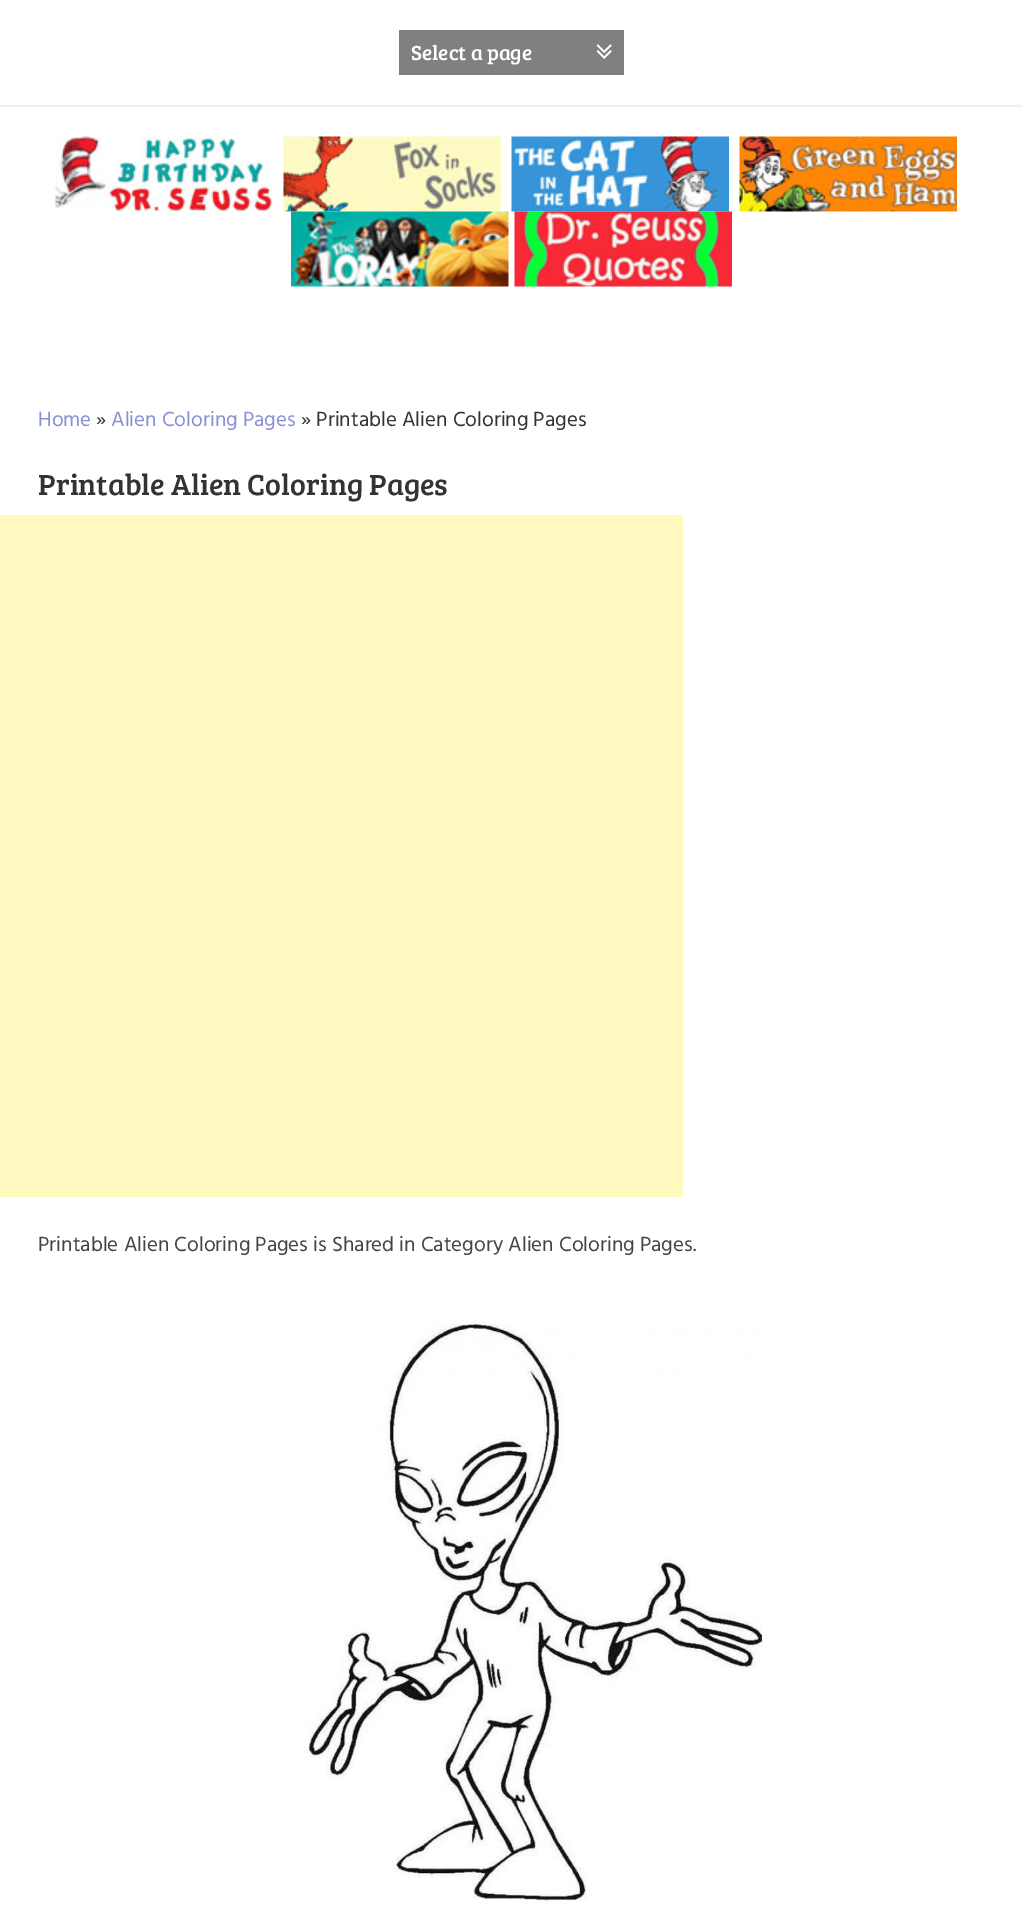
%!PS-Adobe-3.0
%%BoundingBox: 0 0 1022 1912
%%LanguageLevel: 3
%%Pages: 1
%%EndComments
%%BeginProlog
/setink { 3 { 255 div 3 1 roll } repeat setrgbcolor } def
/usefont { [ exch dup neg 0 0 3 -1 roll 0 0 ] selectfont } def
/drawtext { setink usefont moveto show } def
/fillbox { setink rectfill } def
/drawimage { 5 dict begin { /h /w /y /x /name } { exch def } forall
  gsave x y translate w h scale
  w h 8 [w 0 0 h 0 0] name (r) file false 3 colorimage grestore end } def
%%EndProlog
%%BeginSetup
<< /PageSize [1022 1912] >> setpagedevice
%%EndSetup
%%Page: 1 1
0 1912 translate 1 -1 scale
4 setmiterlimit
0 0 1022 1912 255 255 255 fillbox
0 105 1022 2 240 240 240 fillbox
399 30 225 45 128 128 128 fillbox
(Select a page) 411 60 /BreeSerif-Regular 21 255 255 255 drawtext
(assets/img1.rgb) 596 44 16 15 drawimage
(assets/img2.rgb) 55 136 217 76 drawimage
(assets/img3.rgb) 283 136 218 76 drawimage
(assets/img4.rgb) 511 136 218 76 drawimage
(assets/img5.rgb) 739 136 218 76 drawimage
(assets/img6.rgb) 291 211 218 76 drawimage
(assets/img7.rgb) 514 211 218 76 drawimage
(Home) 38 426 /Hind-Regular 21 136 144 213 drawtext
(») 96 426 /Hind-Regular 21 51 51 51 drawtext
(Alien Coloring Pages) 111 426 /Hind-Regular 21 136 144 213 drawtext
(» Printable Alien Coloring Pages) 301 426 /Hind-Regular 21 51 51 51 drawtext
(Printable Alien Coloring Pages) 38 495 /BreeSerif-Regular 30 51 51 51 drawtext
0 515 683 682 255 249 192 fillbox
(Printable Alien Coloring Pages is Shared in Category Alien Coloring Pages.) 38 1251 /Hind-Regular 21 68 68 68 drawtext
(assets/img8.rgb) 305 1319 461 585 drawimage
showpage
%%EOF
